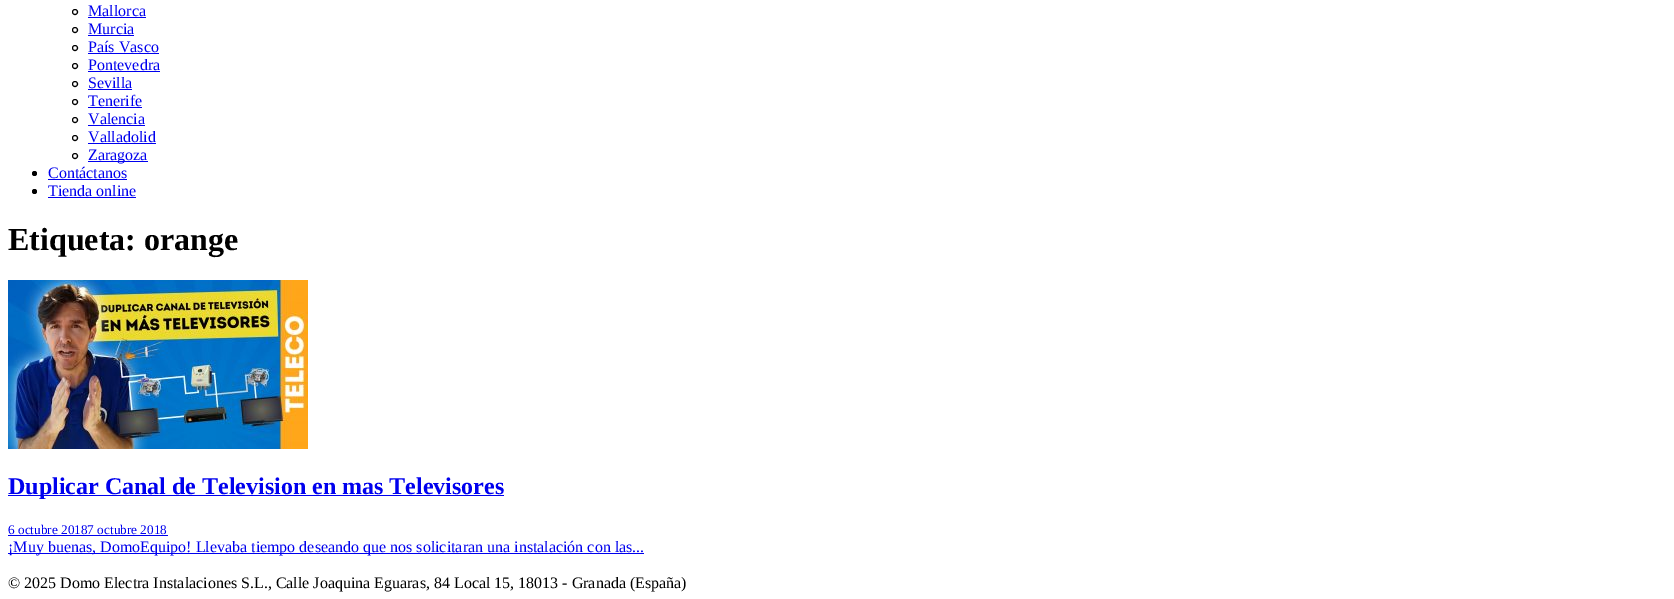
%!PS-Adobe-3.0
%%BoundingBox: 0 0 1674 599
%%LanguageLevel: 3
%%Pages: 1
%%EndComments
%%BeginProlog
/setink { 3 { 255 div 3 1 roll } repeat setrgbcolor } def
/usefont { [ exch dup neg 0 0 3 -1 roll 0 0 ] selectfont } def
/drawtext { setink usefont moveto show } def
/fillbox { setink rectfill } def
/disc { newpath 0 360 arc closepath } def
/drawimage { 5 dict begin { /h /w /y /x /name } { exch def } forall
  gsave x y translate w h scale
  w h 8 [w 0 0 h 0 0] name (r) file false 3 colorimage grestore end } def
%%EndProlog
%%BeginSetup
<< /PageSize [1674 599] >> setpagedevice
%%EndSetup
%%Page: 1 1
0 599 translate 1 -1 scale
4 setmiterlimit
0 0 1674 599 255 255 255 fillbox
0 0 0 setink
75 12 2.5 disc stroke
(Mallorca) 88 16 /LiberationSerif-Regular 16 0 0 238 drawtext
88 17 58 1 0 0 238 fillbox
0 0 0 setink
75 30 2.5 disc stroke
(Murcia) 88 34 /LiberationSerif-Regular 16 0 0 238 drawtext
88 35 46 1 0 0 238 fillbox
0 0 0 setink
75 48 2.5 disc stroke
(País Vasco) 88 52 /LiberationSerif-Regular 16 0 0 238 drawtext
88 53 71 1 0 0 238 fillbox
0 0 0 setink
75 66 2.5 disc stroke
(Pontevedra) 88 70 /LiberationSerif-Regular 16 0 0 238 drawtext
88 71 72 1 0 0 238 fillbox
0 0 0 setink
75 84 2.5 disc stroke
(Sevilla) 88 88 /LiberationSerif-Regular 16 0 0 238 drawtext
88 89 44 1 0 0 238 fillbox
0 0 0 setink
75 102 2.5 disc stroke
(Tenerife) 88 106 /LiberationSerif-Regular 16 0 0 238 drawtext
88 107 54 1 0 0 238 fillbox
0 0 0 setink
75 120 2.5 disc stroke
(Valencia) 88 124 /LiberationSerif-Regular 16 0 0 238 drawtext
88 125 57 1 0 0 238 fillbox
0 0 0 setink
75 138 2.5 disc stroke
(Valladolid) 88 142 /LiberationSerif-Regular 16 0 0 238 drawtext
88 143 68 1 0 0 238 fillbox
0 0 0 setink
75 156 2.5 disc stroke
88 161 60 1 0 0 238 fillbox
(Zaragoza) 88 160 /LiberationSerif-Regular 16 0 0 238 drawtext
0 0 0 setink
34.5 173.5 2.5 disc fill
(Contáctanos) 48 178 /LiberationSerif-Regular 16 0 0 238 drawtext
48 179 79 1 0 0 238 fillbox
0 0 0 setink
34.5 191.5 2.5 disc fill
(Tienda online) 48 196 /LiberationSerif-Regular 16 0 0 238 drawtext
48 197 88 1 0 0 238 fillbox
(Etiqueta: orange) 8 250 /LiberationSerif-Bold 32 0 0 0 drawtext
(assets/img1.rgb) 8 280 300 169 drawimage
8 495 496 1 0 0 238 fillbox
(Duplicar Canal de Television en mas Televisores) 8 494 /LiberationSerif-Bold 24 0 0 238 drawtext
(6 octubre 20187 octubre 2018) 8 534 /LiberationSerif-Regular 13.25 0 0 238 drawtext
8 535 160 1 0 0 238 fillbox
8 553 636 1 0 0 238 fillbox
(¡Muy buenas, DomoEquipo! Llevaba tiempo deseando que nos solicitaran una instalación con las...) 8 552 /LiberationSerif-Regular 16 0 0 238 drawtext
(© 2025 Domo Electra Instalaciones S.L., Calle Joaquina Eguaras, 84 Local 15, 18013 - Granada \(España\)) 8 588 /LiberationSerif-Regular 16 0 0 0 drawtext
showpage
%%EOF
